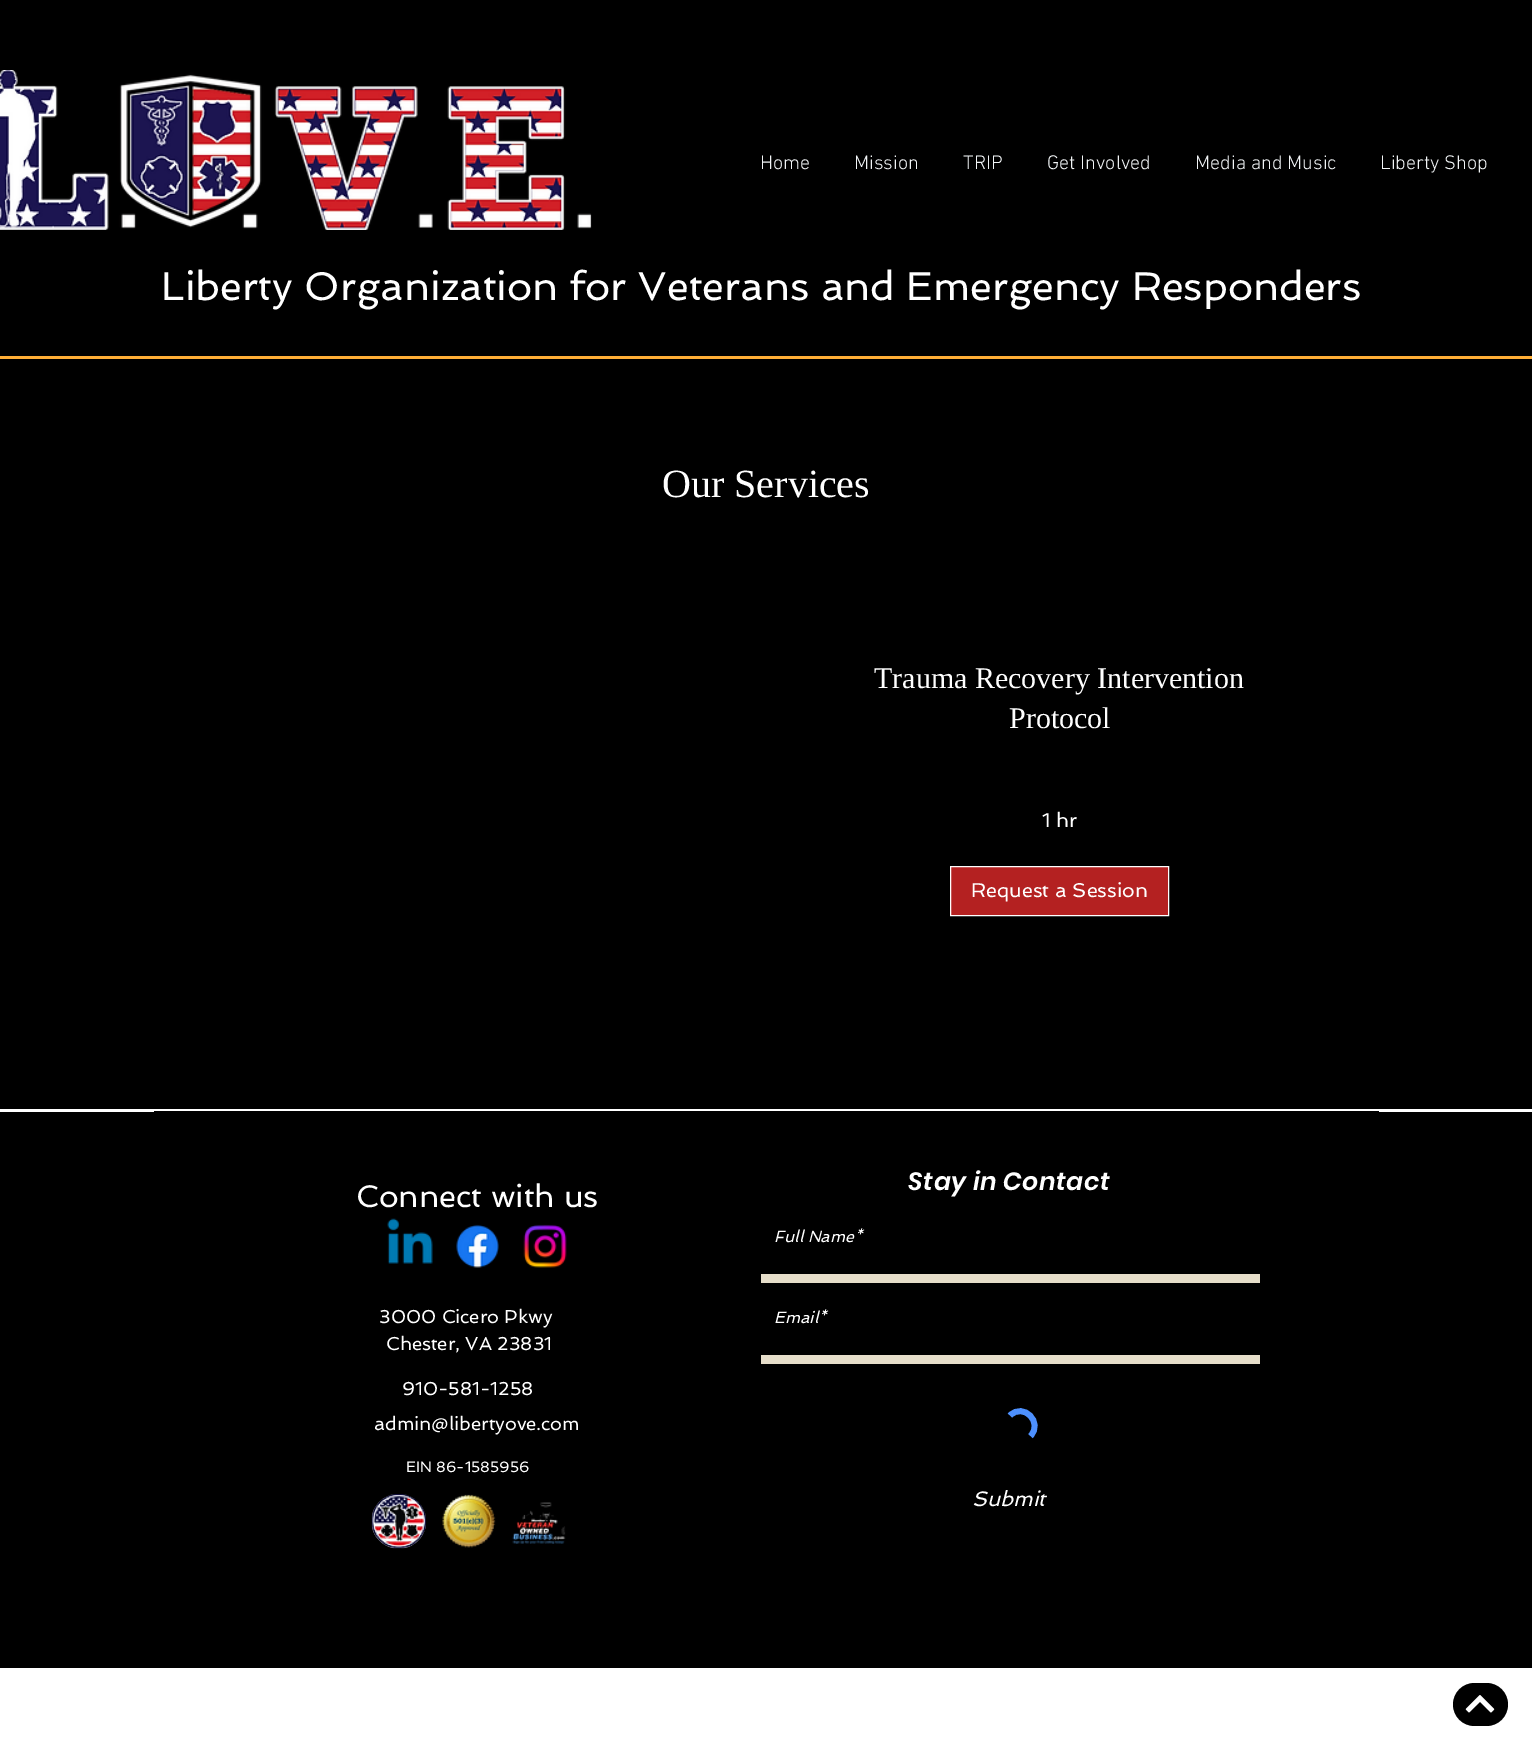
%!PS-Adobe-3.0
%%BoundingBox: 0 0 1532 1751
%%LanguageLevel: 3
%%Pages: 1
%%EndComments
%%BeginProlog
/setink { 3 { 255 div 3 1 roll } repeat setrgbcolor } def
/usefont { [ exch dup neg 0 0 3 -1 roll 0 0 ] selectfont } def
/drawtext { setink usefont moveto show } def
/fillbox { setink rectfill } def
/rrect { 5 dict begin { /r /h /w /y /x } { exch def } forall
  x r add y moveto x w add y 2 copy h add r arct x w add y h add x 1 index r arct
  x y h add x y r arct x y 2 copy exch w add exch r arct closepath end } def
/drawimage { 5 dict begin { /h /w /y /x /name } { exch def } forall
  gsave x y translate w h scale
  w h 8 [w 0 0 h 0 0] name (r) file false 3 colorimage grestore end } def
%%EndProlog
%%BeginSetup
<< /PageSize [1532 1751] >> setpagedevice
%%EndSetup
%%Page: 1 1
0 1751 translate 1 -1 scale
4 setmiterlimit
0 0 1532 1751 255 255 255 fillbox
0 0 1532 356 0 0 0 fillbox
0 356 1532 3 255 174 54 fillbox
(assets/img1.rgb) 0 70 592 160 drawimage
(Home) 760 169 /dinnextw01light-Light 20 242 245 247 drawtext
(Mission) 854 169 /dinnextw01light-Light 20 242 245 247 drawtext
(TRIP) 963 169 /dinnextw01light-Light 20 242 245 247 drawtext
(Get Involved) 1047 169 /dinnextw01light-Light 20 242 245 247 drawtext
(Media and Music) 1195 169 /dinnextw01light-Light 20 242 245 247 drawtext
(Liberty Shop) 1380 169 /dinnextw01light-Light 20 242 245 247 drawtext
(Liberty Organization for Veterans and Emergency Responders) 161 300 /Spinnaker-Regular 40 255 255 255 drawtext
0 359 1532 750 0 0 0 fillbox
(Our Services) 662 497 /LiberationSerif-Regular 40 255 255 255 drawtext
(Trauma Recovery Intervention) 874 688 /LiberationSerif-Regular 30 255 255 255 drawtext
(Protocol) 1009 728 /LiberationSerif-Regular 30 255 255 255 drawtext
(1 hr) 1042 827 /Spinnaker-Regular 20 255 255 255 drawtext
180 33 33 setink
950.5 866.5 moveto 1168.5 866.5 lineto 1168.5 915.5 lineto 950.5 915.5 lineto closepath gsave fill grestore
255 255 255 setink
stroke
(Request a Session) 971 897 /Spinnaker-Regular 20 255 255 255 drawtext
0 1112 1532 556 0 0 0 fillbox
154 1111 1225 1 0 0 0 fillbox
(Connect with us) 356 1207 /Spinnaker-Regular 31.25 255 255 255 drawtext
(assets/img2.rgb) 387 1218 46 46 drawimage
(assets/img3.rgb) 456 1224 43 44 drawimage
(assets/img4.rgb) 523 1224 44 44 drawimage
(3000 Cicero Pkwy) 379 1323 /Spinnaker-Regular 18.75 255 255 255 drawtext
(Chester, VA 23831) 386 1350 /Spinnaker-Regular 18.75 255 255 255 drawtext
(910-581-1258) 402 1395 /Spinnaker-Regular 18.75 255 255 255 drawtext
(admin@libertyove.com) 374 1430 /Spinnaker-Regular 18.75 255 255 255 drawtext
(EIN 86-1585956) 406 1472 /Spinnaker-Regular 15 255 255 255 drawtext
(assets/img5.rgb) 371 1494 55 55 drawimage
(assets/img6.rgb) 442 1494 54 54 drawimage
(assets/img7.rgb) 512 1502 54 42 drawimage
/Poppins-SemiBoldItalic 25 usefont
908 1190 moveto 0.5 0 (Stay in Contact) ashow
761 1274 499 9 230 222 202 fillbox
(Full Name*) 774 1242 /Spinnaker-Italic 16.25 255 255 255 drawtext
761 1355 499 9 230 222 202 fillbox
(Email*) 774 1323 /Spinnaker-Italic 16.25 255 255 255 drawtext
77 144 254 setink
5.8 setlinewidth
1010 1415.5 moveto 1023.5 1402 1043.5 1422.5 1030.5 1436 curveto stroke
(Submit) 972 1506 /Spinnaker-Italic 21 255 255 255 drawtext
0 0 0 setink
1453 1683 55 43 21.5 rrect fill
(assets/img8.rgb) 1465 1695 30 18 drawimage
showpage
%%EOF
